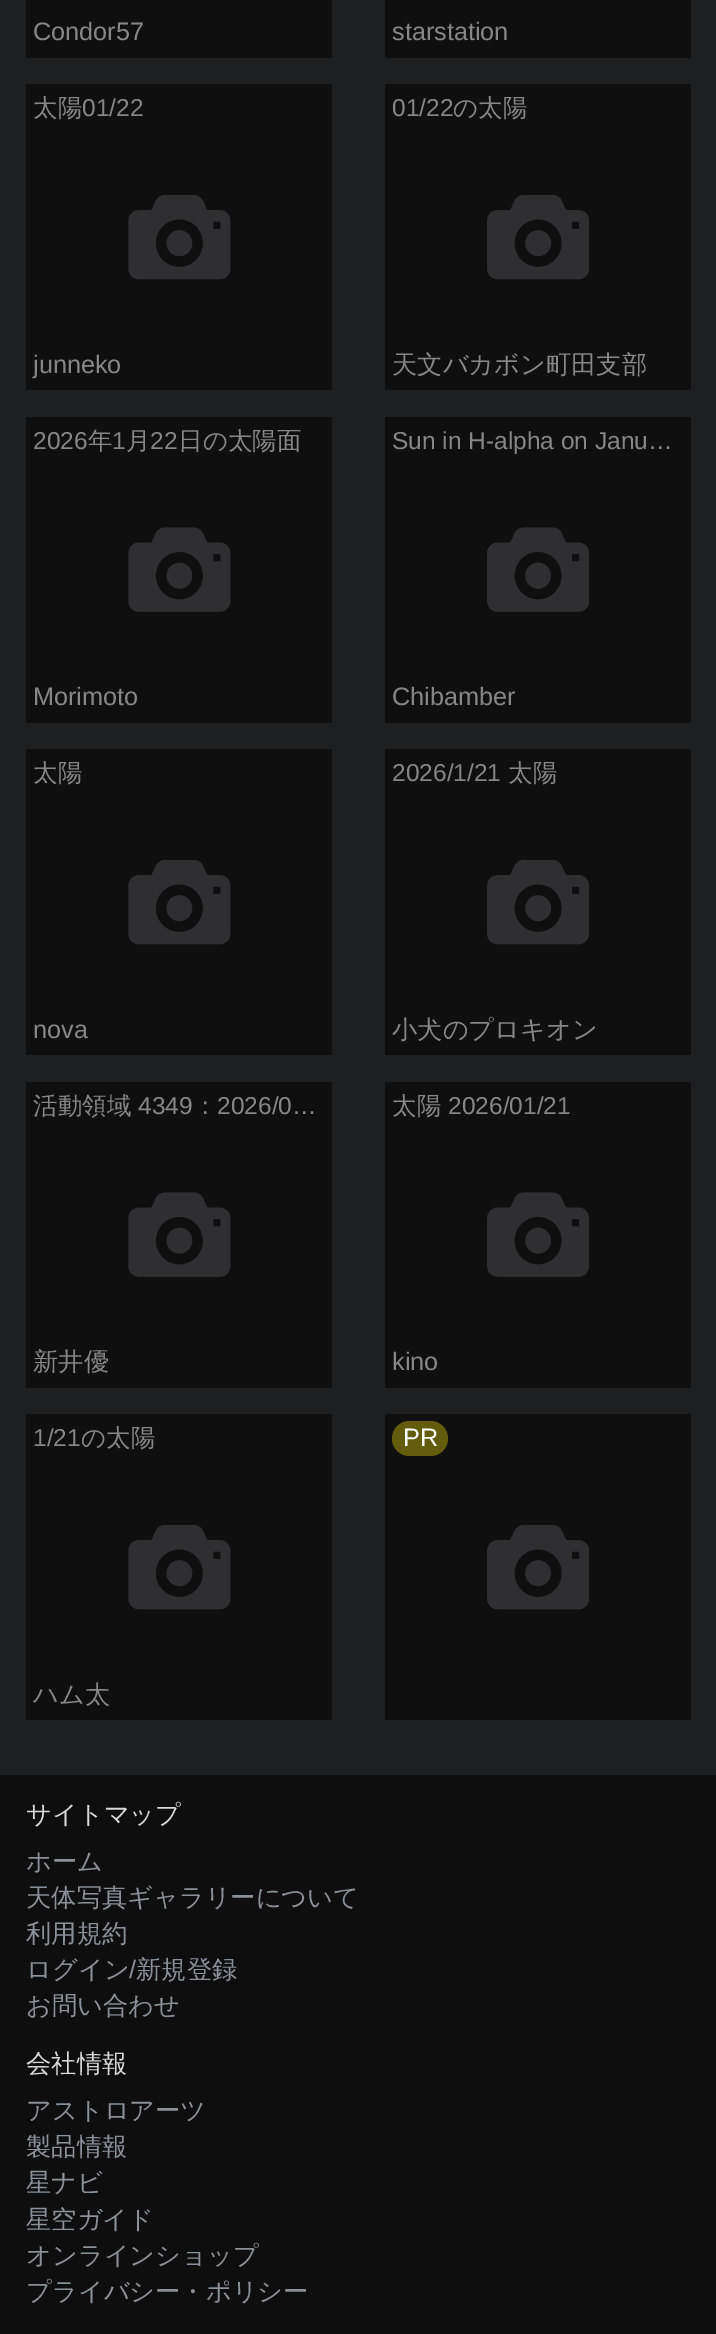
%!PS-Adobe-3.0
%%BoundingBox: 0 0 716 2334
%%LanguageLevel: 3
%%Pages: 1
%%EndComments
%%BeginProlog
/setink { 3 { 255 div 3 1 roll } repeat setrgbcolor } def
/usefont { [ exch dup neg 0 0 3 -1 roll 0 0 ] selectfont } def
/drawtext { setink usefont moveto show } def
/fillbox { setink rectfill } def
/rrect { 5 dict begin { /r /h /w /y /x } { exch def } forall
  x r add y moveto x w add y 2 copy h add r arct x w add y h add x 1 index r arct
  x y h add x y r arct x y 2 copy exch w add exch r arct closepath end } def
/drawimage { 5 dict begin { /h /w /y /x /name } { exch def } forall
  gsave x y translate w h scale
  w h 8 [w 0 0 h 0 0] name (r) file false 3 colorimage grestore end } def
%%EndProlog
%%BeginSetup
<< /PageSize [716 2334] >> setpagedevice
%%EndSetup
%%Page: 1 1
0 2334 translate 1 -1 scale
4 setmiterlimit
0 0 716 2334 30 31 33 fillbox
26 0 306 58 15 15 16 fillbox
(Condor57) 33 40 /LiberationSans-Regular 25.25 135 135 136 drawtext
385 0 306 58 15 15 16 fillbox
(starstation) 392 40 /LiberationSans-Regular 25.25 135 135 136 drawtext
(assets/img1.rgb) 26 84 306 306 drawimage
(太陽) 33 116 /WenQuanYiZenHei-Medium 24.5 135 135 136 drawtext
(01/22) 82 116 /LiberationSans-Regular 24.5 135 135 136 drawtext
(junneko) 33 373 /LiberationSans-Regular 25.25 135 135 136 drawtext
(assets/img2.rgb) 385 84 306 306 drawimage
(01/22) 392 116 /LiberationSans-Regular 24.5 135 135 136 drawtext
(の太陽) 453 116 /WenQuanYiZenHei-Medium 24.5 135 135 136 drawtext
(天文バカボン町田支部) 392 373 /WenQuanYiZenHei-Medium 25.25 135 135 136 drawtext
(assets/img3.rgb) 26 417 306 306 drawimage
(2026) 33 449 /LiberationSans-Regular 24.5 135 135 136 drawtext
(年) 88 449 /WenQuanYiZenHei-Medium 24.5 135 135 136 drawtext
(1) 112 449 /LiberationSans-Regular 24.5 135 135 136 drawtext
(月) 126 449 /WenQuanYiZenHei-Medium 24.5 135 135 136 drawtext
(22) 150 449 /LiberationSans-Regular 24.5 135 135 136 drawtext
(日の太陽面) 178 449 /WenQuanYiZenHei-Medium 24.5 135 135 136 drawtext
(Morimoto) 33 705 /LiberationSans-Regular 25.25 135 135 136 drawtext
(assets/img4.rgb) 385 417 306 306 drawimage
(Sun in H-alpha on Janu…) 392 449 /LiberationSans-Regular 24.5 135 135 136 drawtext
(Chibamber) 392 705 /LiberationSans-Regular 25.25 135 135 136 drawtext
(assets/img1.rgb) 26 749 306 306 drawimage
(太陽) 33 781 /WenQuanYiZenHei-Medium 24.5 135 135 136 drawtext
(nova) 33 1038 /LiberationSans-Regular 25.25 135 135 136 drawtext
(assets/img2.rgb) 385 749 306 306 drawimage
(2026/1/21) 392 781 /LiberationSans-Regular 24.5 135 135 136 drawtext
(太陽) 508 781 /WenQuanYiZenHei-Medium 24.5 135 135 136 drawtext
(小犬のプロキオン) 392 1038 /WenQuanYiZenHei-Medium 25.25 135 135 136 drawtext
(assets/img3.rgb) 26 1082 306 306 drawimage
(活動領域) 33 1114 /WenQuanYiZenHei-Medium 24.5 135 135 136 drawtext
(4349) 138 1114 /LiberationSans-Regular 24.5 135 135 136 drawtext
(：) 193 1114 /WenQuanYiZenHei-Medium 24.5 135 135 136 drawtext
(2026/0…) 217 1114 /LiberationSans-Regular 24.5 135 135 136 drawtext
(新井優) 33 1370 /WenQuanYiZenHei-Medium 25.25 135 135 136 drawtext
(assets/img4.rgb) 385 1082 306 306 drawimage
(太陽) 392 1114 /WenQuanYiZenHei-Medium 24.5 135 135 136 drawtext
(2026/01/21) 448 1114 /LiberationSans-Regular 24.5 135 135 136 drawtext
(kino) 392 1370 /LiberationSans-Regular 25.25 135 135 136 drawtext
(assets/img1.rgb) 26 1414 306 306 drawimage
(1/21) 33 1446 /LiberationSans-Regular 24.5 135 135 136 drawtext
(の太陽) 81 1446 /WenQuanYiZenHei-Medium 24.5 135 135 136 drawtext
(ハム太) 33 1703 /WenQuanYiZenHei-Medium 25.25 135 135 136 drawtext
(assets/img2.rgb) 385 1414 306 306 drawimage
99 92 13 setink
392 1421 56 35 17.5 rrect fill
(PR) 403 1446 /LiberationSans-Regular 25.25 255 255 255 drawtext
0 1775 716 559 14 14 15 fillbox
(サイトマップ) 26 1823 /WenQuanYiZenHei-Medium 25.25 217 217 217 drawtext
(ホーム) 26 1870 /WenQuanYiZenHei-Medium 25.25 139 144 153 drawtext
(天体写真ギャラリーについて) 26 1906 /WenQuanYiZenHei-Medium 25.25 139 144 153 drawtext
(利用規約) 26 1942 /WenQuanYiZenHei-Medium 25.25 139 144 153 drawtext
(ログイン) 26 1978 /WenQuanYiZenHei-Medium 25.25 139 144 153 drawtext
(/) 129 1978 /LiberationSans-Regular 25.25 139 144 153 drawtext
(新規登録) 136 1978 /WenQuanYiZenHei-Medium 25.25 139 144 153 drawtext
(お問い合わせ) 26 2014 /WenQuanYiZenHei-Medium 25.25 139 144 153 drawtext
(会社情報) 26 2072 /WenQuanYiZenHei-Medium 25.25 217 217 217 drawtext
(アストロアーツ) 26 2119 /WenQuanYiZenHei-Medium 25.25 139 144 153 drawtext
(製品情報) 26 2155 /WenQuanYiZenHei-Medium 25.25 139 144 153 drawtext
(星ナビ) 26 2191 /WenQuanYiZenHei-Medium 25.25 139 144 153 drawtext
(星空ガイド) 26 2228 /WenQuanYiZenHei-Medium 25.25 139 144 153 drawtext
(オンラインショップ) 26 2264 /WenQuanYiZenHei-Medium 25.25 139 144 153 drawtext
(プライバシー・ポリシー) 26 2300 /WenQuanYiZenHei-Medium 25.25 139 144 153 drawtext
showpage
%%EOF
